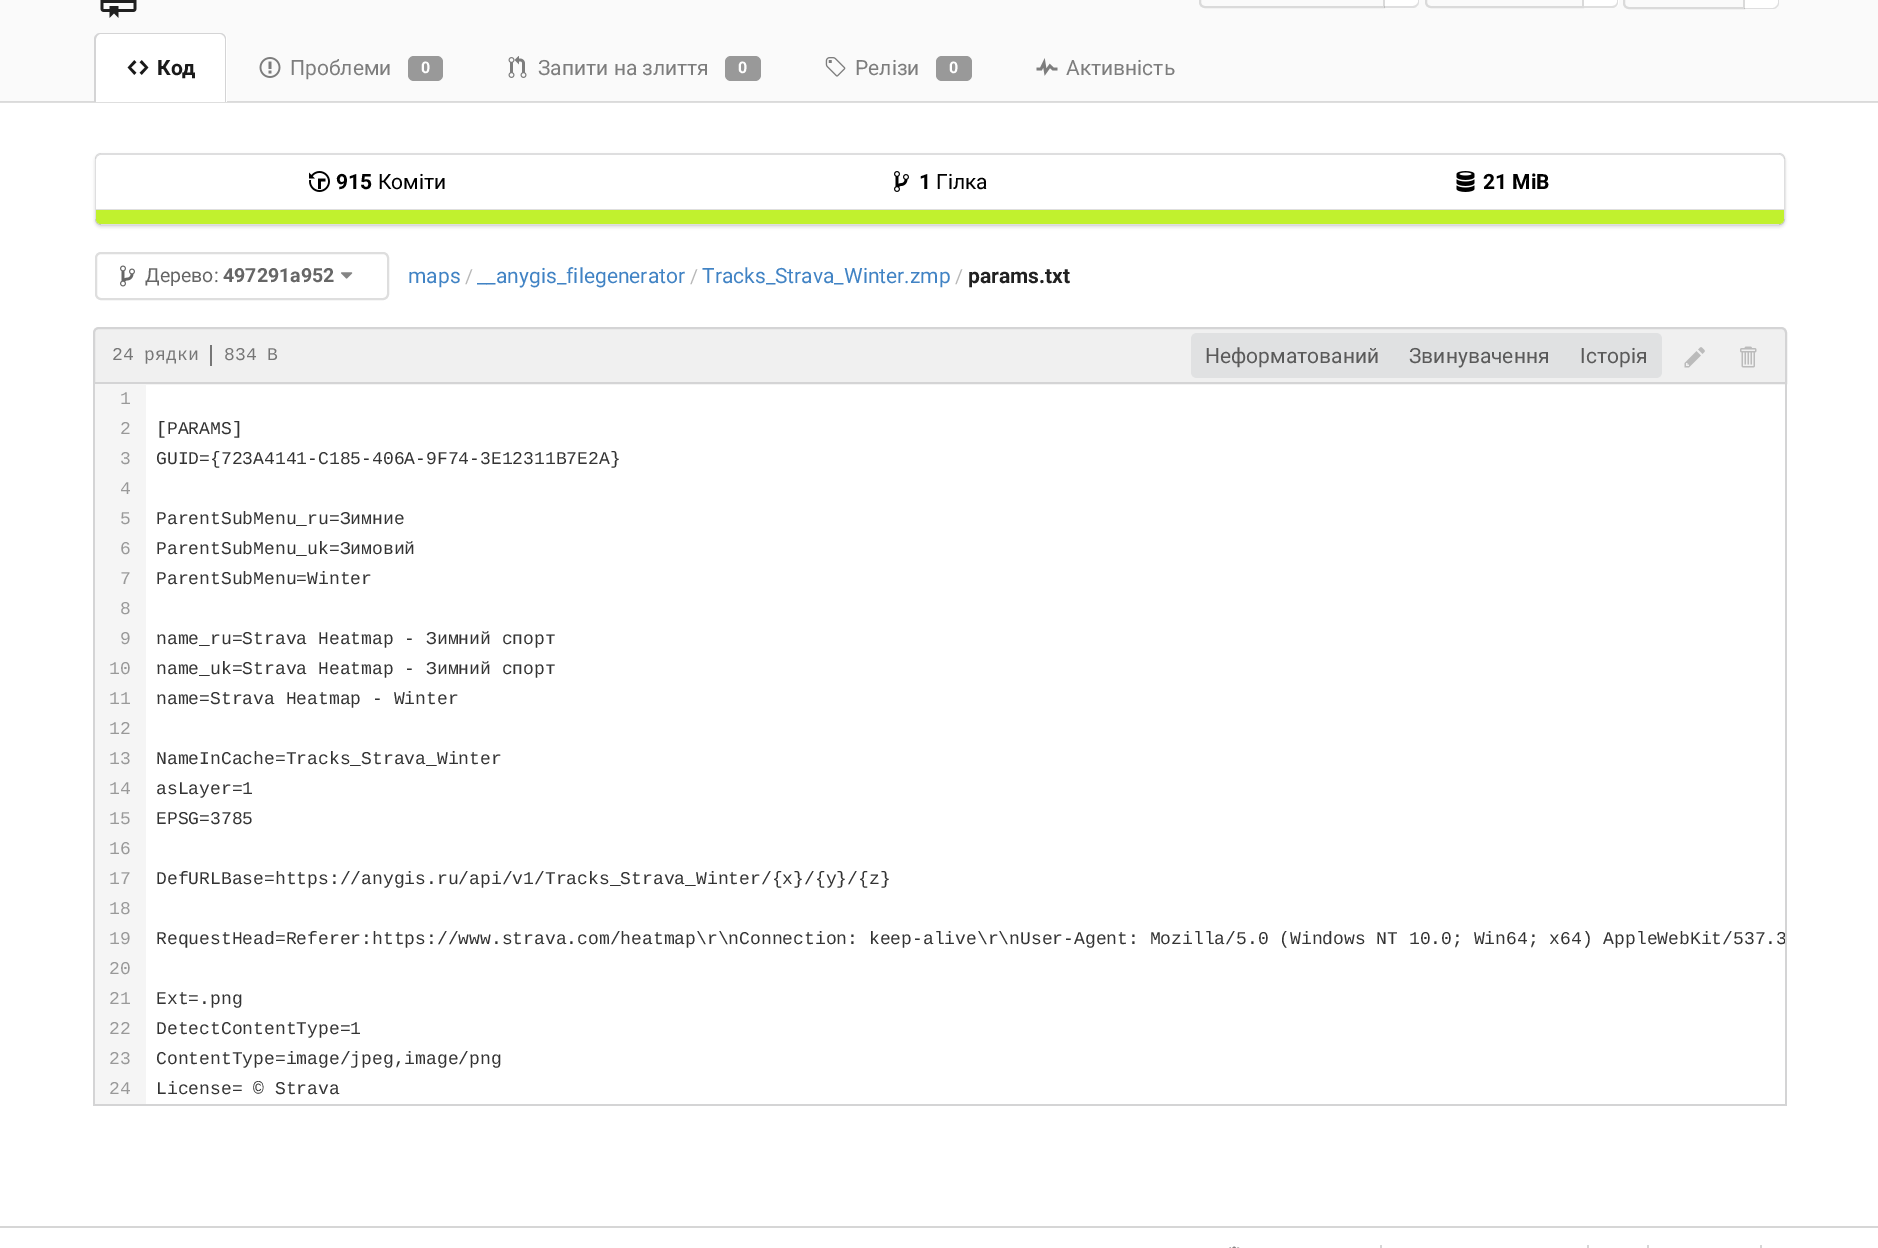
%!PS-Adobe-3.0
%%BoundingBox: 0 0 1878 1248
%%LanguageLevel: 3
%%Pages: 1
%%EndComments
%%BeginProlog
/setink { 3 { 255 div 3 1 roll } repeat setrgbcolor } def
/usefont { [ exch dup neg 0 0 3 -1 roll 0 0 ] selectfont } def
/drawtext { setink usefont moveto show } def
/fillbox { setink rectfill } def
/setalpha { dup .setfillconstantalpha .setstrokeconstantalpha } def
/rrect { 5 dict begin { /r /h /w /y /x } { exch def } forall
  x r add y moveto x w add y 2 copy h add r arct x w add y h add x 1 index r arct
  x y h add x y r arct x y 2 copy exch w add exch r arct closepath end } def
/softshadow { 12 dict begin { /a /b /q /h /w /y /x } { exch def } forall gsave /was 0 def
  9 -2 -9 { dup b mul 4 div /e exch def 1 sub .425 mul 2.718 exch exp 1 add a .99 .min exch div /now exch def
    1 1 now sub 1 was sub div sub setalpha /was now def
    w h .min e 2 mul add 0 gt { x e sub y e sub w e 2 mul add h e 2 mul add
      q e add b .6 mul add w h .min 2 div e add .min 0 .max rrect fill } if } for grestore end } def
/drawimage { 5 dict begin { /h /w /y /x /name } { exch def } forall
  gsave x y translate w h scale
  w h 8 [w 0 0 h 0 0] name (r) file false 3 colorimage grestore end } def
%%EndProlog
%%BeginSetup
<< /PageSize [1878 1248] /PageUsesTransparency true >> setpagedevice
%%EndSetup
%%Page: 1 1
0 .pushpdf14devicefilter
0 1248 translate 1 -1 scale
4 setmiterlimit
0 0 1878 1248 255 255 255 fillbox
0 102 1878 1 222 222 222 fillbox
0 0 1878 101 250 250 250 fillbox
0 101 1878 1 218 218 218 fillbox
(assets/img1.rgb) 100 0 37 18 drawimage
2 setlinewidth
1205 -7 moveto 1384 -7 lineto 1384 7 lineto 1205 7 lineto 1202 7 1200 5 1200 2 curveto 1200 -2 lineto 1200 -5 1202 -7 1205 -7 curveto closepath stroke
255 255 255 setink
1385 -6 moveto 1413 -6 lineto 1416.5 -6 1419 -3.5 1419 0 curveto 1419 2 lineto 1419 5.5 1416.5 8 1413 8 curveto 1385 8 lineto closepath fill
0.15 setalpha
34 36 38 setink
1384 -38 moveto 1413 -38 lineto 1416 -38 1419 -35 1419 -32 curveto 1419 2 lineto 1419 5 1416 8 1413 8 curveto 1384 8 lineto closepath 1384 -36 moveto 1413 -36 lineto 1415 -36 1418 -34 1418 -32 curveto 1418 2 lineto 1418 4 1415 6 1413 6 curveto 1384 6 lineto closepath eofill
1 setalpha
218 218 218 setink
1431 -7 moveto 1583 -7 lineto 1583 7 lineto 1431 7 lineto 1428 7 1426 5 1426 2 curveto 1426 -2 lineto 1426 -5 1428 -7 1431 -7 curveto closepath stroke
255 255 255 setink
1584 -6 moveto 1613 -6 lineto 1616.5 -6 1619 -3.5 1619 0 curveto 1619 2 lineto 1619 5.5 1616.5 8 1613 8 curveto 1584 8 lineto closepath fill
222 222 222 setink
1584 -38 moveto 1612 -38 lineto 1616 -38 1618 -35 1618 -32 curveto 1618 2 lineto 1618 5 1616 8 1612 8 curveto 1584 8 lineto closepath 1584 -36 moveto 1612 -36 lineto 1615 -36 1617 -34 1617 -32 curveto 1617 2 lineto 1617 4 1615 6 1612 6 curveto 1584 6 lineto closepath eofill
218 218 218 setink
1629 -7 moveto 1744 -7 lineto 1744 8 lineto 1629 8 lineto 1626 8 1624 6 1624 3 curveto 1624 -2 lineto 1624 -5 1626 -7 1629 -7 curveto closepath stroke
255 255 255 setink
1745 -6 moveto 1773 -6 lineto 1776.5 -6 1779 -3.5 1779 0 curveto 1779 3 lineto 1779 6.5 1776.5 9 1773 9 curveto 1745 9 lineto closepath fill
0.15 setalpha
34 36 38 setink
1744 -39 moveto 1773 -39 lineto 1776 -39 1779 -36 1779 -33 curveto 1779 3 lineto 1779 6 1776 9 1773 9 curveto 1744 9 lineto closepath 1744 -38 moveto 1773 -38 lineto 1775 -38 1778 -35 1778 -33 curveto 1778 3 lineto 1778 5 1775 8 1773 8 curveto 1744 8 lineto closepath eofill
1 setalpha
255 255 255 setink
101 33 moveto 221 33 lineto 224.5 33 227 35.5 227 39 curveto 227 102 lineto 95 102 lineto 95 39 lineto 95 35.5 97.5 33 101 33 curveto closepath fill
212 212 213 setink
100 33 moveto 220 33 lineto 224 33 226 36 226 39 curveto 226 102 lineto 94 102 lineto 94 39 lineto 94 36 97 33 100 33 curveto closepath 100 34 moveto 220 34 lineto 223 34 225 37 225 39 curveto 225 102 lineto 96 102 lineto 96 39 lineto 96 37 98 34 100 34 curveto closepath eofill
(assets/img2.rgb) 127 60 22 15 drawimage
(Код) 157 75 /Roboto-Bold 21 26 26 26 drawtext
(assets/img3.rgb) 259 57 22 21 drawimage
(Проблеми) 290 75 /Roboto-Regular 21 125 125 125 drawtext
153 153 153 setink
408 56 35 25 6 rrect fill
(0) 421 73 /Roboto-Bold 16 255 255 255 drawtext
(assets/img4.rgb) 508 56 19 22 drawimage
(Запити на злиття) 538 75 /Roboto-Regular 21 125 125 125 drawtext
153 153 153 setink
725 56 36 25 6 rrect fill
(0) 738 73 /Roboto-Bold 16 255 255 255 drawtext
(assets/img5.rgb) 825 57 21 20 drawimage
(Релізи) 855 75 /Roboto-Regular 21 125 125 125 drawtext
153 153 153 setink
936 56 36 25 6 rrect fill
(0) 949 73 /Roboto-Bold 16 255 255 255 drawtext
(assets/img6.rgb) 1036 58 22 18 drawimage
(Активність) 1066 75 /Roboto-Regular 21 125 125 125 drawtext
gsave
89 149 moveto 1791 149 lineto 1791 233 lineto 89 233 lineto closepath 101 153 moveto 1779 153 lineto 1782.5 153 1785 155.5 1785 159 curveto 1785 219 lineto 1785 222.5 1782.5 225 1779 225 curveto 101 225 lineto 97.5 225 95 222.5 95 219 curveto 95 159 lineto 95 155.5 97.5 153 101 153 curveto closepath eoclip newpath
34 36 38 setink
95 155 1690 72 6 1.5 0.15 softshadow
grestore
0.15 setalpha
34 36 38 setink
96 154 1688 70 5 rrect stroke
gsave
96 155 1688 69 5 rrect clip newpath
1 setalpha
255 255 255 setink
102 155 moveto 1778 155 lineto 1781.5 155 1784 157.5 1784 161 curveto 1784 209 lineto 96 209 lineto 96 161 lineto 96 157.5 98.5 155 102 155 curveto closepath fill
grestore
1 setalpha
(assets/img7.rgb) 309 171 21 21 drawimage
(915) 336 189 /Roboto-Bold 21 0 0 0 drawtext
(Коміти) 378 189 /Roboto-Regular 21 0 0 0 drawtext
(assets/img8.rgb) 894 171 15 21 drawimage
(1) 919 189 /Roboto-Bold 21 0 0 0 drawtext
(Гілка) 936 189 /Roboto-Regular 21 0 0 0 drawtext
(assets/img9.rgb) 1456 171 19 21 drawimage
(21 MiB) 1483 189 /Roboto-Bold 21 0 0 0 drawtext
96 209 1688 1 222 222 222 fillbox
193 241 46 setink
96 210 moveto 1784 210 lineto 1784 219 lineto 1784 222 1782 224 1779 224 curveto 101 224 lineto 98 224 96 222 96 219 curveto closepath fill
222 222 222 setink
96 253 292 46 5 rrect stroke
(assets/img10.rgb) 120 265 15 22 drawimage
(Дерево:) 145 282 /Roboto-Regular 19.5 102 102 102 drawtext
(497291a952) 223 282 /Roboto-Bold 19.5 102 102 102 drawtext
(assets/img11.rgb) 341 272 12 7 drawimage
(maps) 408 283 /Roboto-Regular 21 65 131 196 drawtext
(/) 465 283 /Roboto-Regular 19.5 184 184 184 drawtext
(__anygis_filegenerator) 477 283 /Roboto-Regular 21 65 131 196 drawtext
(/) 690 283 /Roboto-Regular 19.5 184 184 184 drawtext
(Tracks_Strava_Winter.zmp) 702 283 /Roboto-Regular 21 65 131 196 drawtext
(/) 955 283 /Roboto-Regular 19.5 184 184 184 drawtext
(params.txt) 968 283 /Roboto-Bold 21 33 33 33 drawtext
240 240 240 setink
99 328 moveto 1781 328 lineto 1784 328 1786 330 1786 333 curveto 1786 383 lineto 94 383 lineto 94 333 lineto 94 330 96 328 99 328 curveto closepath gsave fill grestore
212 212 213 setink
stroke
(24 рядки) 112 360 /LiberationMono-Regular 18 118 118 118 drawtext
210 345 2 21 118 118 118 fillbox
(834 B) 224 360 /LiberationMono-Regular 18 118 118 118 drawtext
224 225 226 setink
1197 333 moveto 1395 333 lineto 1395 378 lineto 1197 378 lineto 1193.5 378 1191 375.5 1191 372 curveto 1191 339 lineto 1191 335.5 1193.5 333 1197 333 curveto closepath fill
(Неформатований) 1205 363 /Roboto-Regular 21 90 90 90 drawtext
1395 333 170 45 224 225 226 fillbox
(Звинувачення) 1409 363 /Roboto-Regular 21 90 90 90 drawtext
224 225 226 setink
1565 333 moveto 1656 333 lineto 1659.5 333 1662 335.5 1662 339 curveto 1662 372 lineto 1662 375.5 1659.5 378 1656 378 curveto 1565 378 lineto closepath fill
(Історія) 1580 363 /Roboto-Regular 21 90 90 90 drawtext
(assets/img12.rgb) 1684 347 21 21 drawimage
(assets/img13.rgb) 1740 346 17 22 drawimage
1785 384 2 722 212 212 213 fillbox
93 1104 1694 2 212 212 213 fillbox
93 384 2 722 212 212 213 fillbox
95 384 51 720 245 245 245 fillbox
(1) 120 404 /LiberationMono-Regular 18 153 153 153 drawtext
(2) 120 434 /LiberationMono-Regular 18 153 153 153 drawtext
(3) 120 464 /LiberationMono-Regular 18 153 153 153 drawtext
(4) 120 494 /LiberationMono-Regular 18 153 153 153 drawtext
(5) 120 524 /LiberationMono-Regular 18 153 153 153 drawtext
(6) 120 554 /LiberationMono-Regular 18 153 153 153 drawtext
(7) 120 584 /LiberationMono-Regular 18 153 153 153 drawtext
(8) 120 614 /LiberationMono-Regular 18 153 153 153 drawtext
(9) 120 644 /LiberationMono-Regular 18 153 153 153 drawtext
(10) 109 674 /LiberationMono-Regular 18 153 153 153 drawtext
(11) 109 704 /LiberationMono-Regular 18 153 153 153 drawtext
(12) 109 734 /LiberationMono-Regular 18 153 153 153 drawtext
(13) 109 764 /LiberationMono-Regular 18 153 153 153 drawtext
(14) 109 794 /LiberationMono-Regular 18 153 153 153 drawtext
(15) 109 824 /LiberationMono-Regular 18 153 153 153 drawtext
(16) 109 854 /LiberationMono-Regular 18 153 153 153 drawtext
(17) 109 884 /LiberationMono-Regular 18 153 153 153 drawtext
(18) 109 914 /LiberationMono-Regular 18 153 153 153 drawtext
(19) 109 944 /LiberationMono-Regular 18 153 153 153 drawtext
(20) 109 974 /LiberationMono-Regular 18 153 153 153 drawtext
(21) 109 1004 /LiberationMono-Regular 18 153 153 153 drawtext
(22) 109 1034 /LiberationMono-Regular 18 153 153 153 drawtext
(23) 109 1064 /LiberationMono-Regular 18 153 153 153 drawtext
(24) 109 1094 /LiberationMono-Regular 18 153 153 153 drawtext
([PARAMS]) 156 434 /LiberationMono-Regular 18 51 51 51 drawtext
(GUID={723A4141-C185-406A-9F74-3E12311B7E2A}) 156 464 /LiberationMono-Regular 18 51 51 51 drawtext
(ParentSubMenu_ru=Зимние) 156 524 /LiberationMono-Regular 18 51 51 51 drawtext
(ParentSubMenu_uk=Зимовий) 156 554 /LiberationMono-Regular 18 51 51 51 drawtext
(ParentSubMenu=Winter) 156 584 /LiberationMono-Regular 18 51 51 51 drawtext
(name_ru=Strava Heatmap - Зимний спорт) 156 644 /LiberationMono-Regular 18 51 51 51 drawtext
(name_uk=Strava Heatmap - Зимний спорт) 156 674 /LiberationMono-Regular 18 51 51 51 drawtext
(name=Strava Heatmap - Winter) 156 704 /LiberationMono-Regular 18 51 51 51 drawtext
(NameInCache=Tracks_Strava_Winter) 156 764 /LiberationMono-Regular 18 51 51 51 drawtext
(asLayer=1) 156 794 /LiberationMono-Regular 18 51 51 51 drawtext
(EPSG=3785) 156 824 /LiberationMono-Regular 18 51 51 51 drawtext
(DefURLBase=https://anygis.ru/api/v1/Tracks_Strava_Winter/{x}/{y}/{z}) 156 884 /LiberationMono-Regular 18 51 51 51 drawtext
gsave
146 384 1639 720 rectclip
(RequestHead=Referer:https://www.strava.com/heatmap\\r\\nConnection: keep-alive\\r\\nUser-Agent: Mozilla/5.0 \(Windows NT 10.0; Win64; x64\) AppleWebKit/537.3) 156 944 /LiberationMono-Regular 18 51 51 51 drawtext
grestore
(Ext=.png) 156 1004 /LiberationMono-Regular 18 51 51 51 drawtext
(DetectContentType=1) 156 1034 /LiberationMono-Regular 18 51 51 51 drawtext
(ContentType=image/jpeg,image/png) 156 1064 /LiberationMono-Regular 18 51 51 51 drawtext
(License= © Strava) 156 1094 /LiberationMono-Regular 18 51 51 51 drawtext
0 1226 1878 2 214 214 214 fillbox
(assets/img14.rgb) 1229 1246 11 2 drawimage
1380 1245 2 3 214 214 214 fillbox
1587 1245 2 3 214 214 214 fillbox
1647 1245 2 3 214 214 214 fillbox
1760 1245 2 3 214 214 214 fillbox
.poppdf14devicefilter showpage
%%EOF
